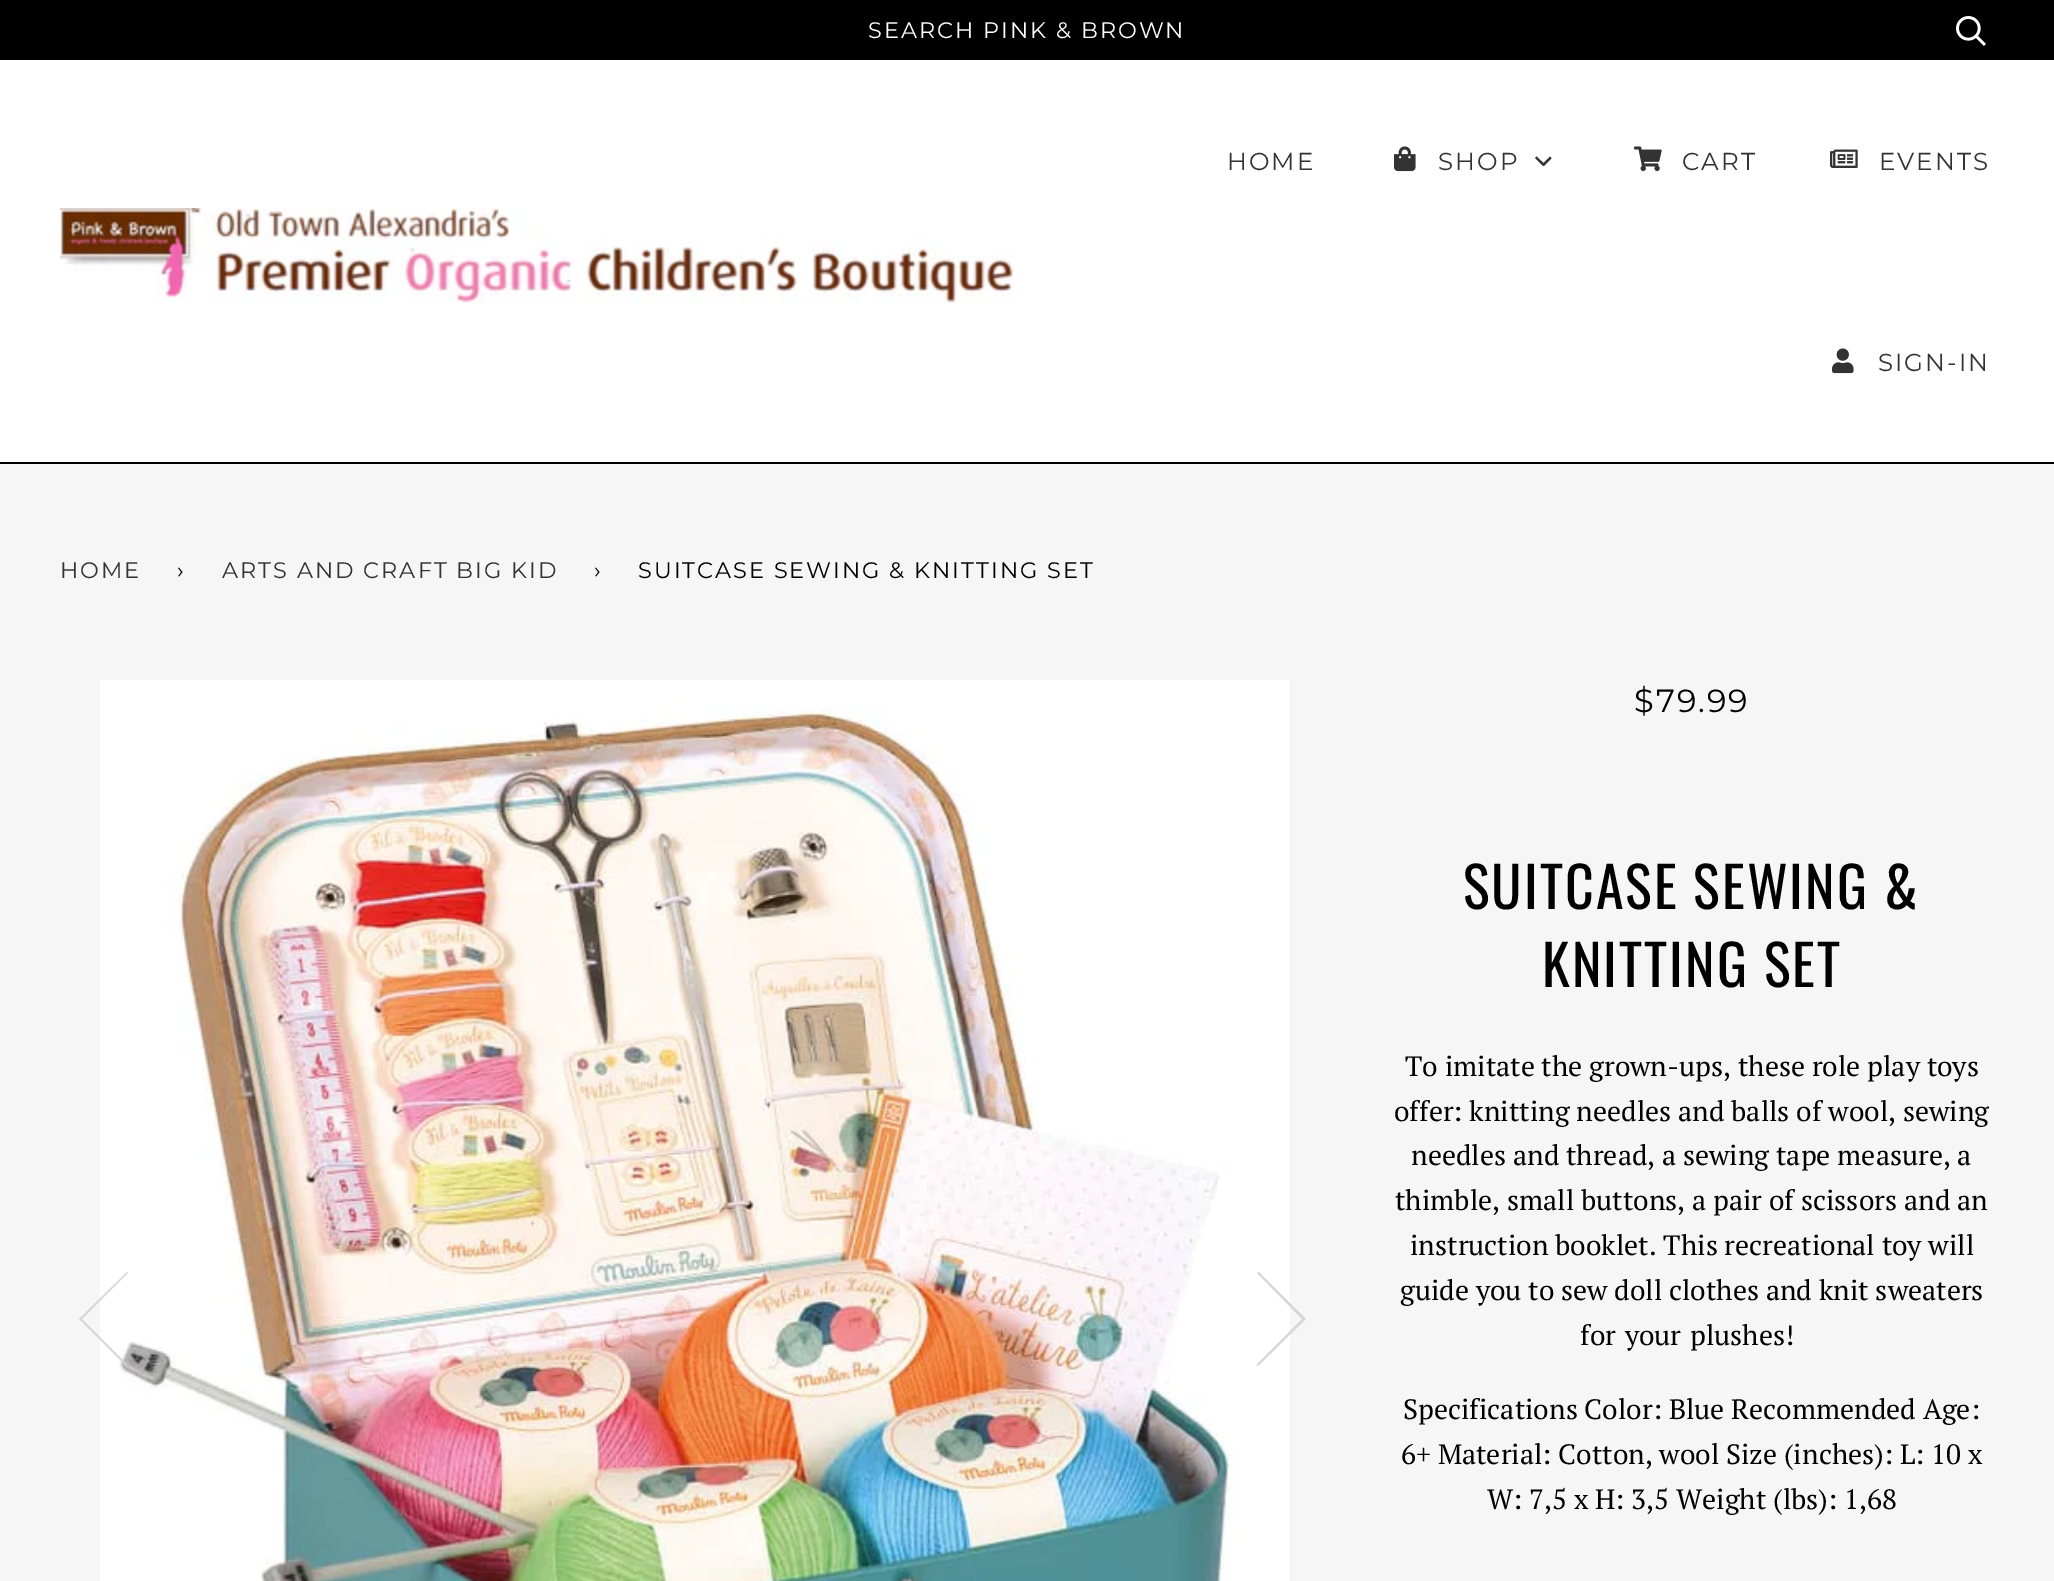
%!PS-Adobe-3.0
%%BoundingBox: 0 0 2054 1581
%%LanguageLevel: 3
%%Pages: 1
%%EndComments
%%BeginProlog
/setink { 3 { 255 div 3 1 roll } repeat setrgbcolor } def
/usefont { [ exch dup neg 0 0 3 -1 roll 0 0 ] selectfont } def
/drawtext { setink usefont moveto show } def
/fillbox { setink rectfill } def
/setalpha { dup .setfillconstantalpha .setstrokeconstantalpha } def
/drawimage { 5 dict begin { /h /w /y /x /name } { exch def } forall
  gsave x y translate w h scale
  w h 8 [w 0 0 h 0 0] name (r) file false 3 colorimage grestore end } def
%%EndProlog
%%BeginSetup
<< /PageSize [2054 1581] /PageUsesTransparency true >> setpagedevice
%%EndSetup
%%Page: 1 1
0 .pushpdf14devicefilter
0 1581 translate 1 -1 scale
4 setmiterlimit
0 0 2054 1581 255 255 255 fillbox
0 0 2054 60 0 0 0 fillbox
/Montserrat-Thin 22.4 usefont
255 255 255 setink
868 38 moveto 2 0 (SEARCH PINK & BROWN) ashow
(assets/img1.rgb) 1956 16 30 30 drawimage
0 462 2054 2 0 0 0 fillbox
(assets/img2.rgb) 60 208 956 97 drawimage
/Montserrat-Thin 24.5 usefont
51 51 51 setink
1227 170 moveto 2 0 (HOME) ashow
(assets/img3.rgb) 1394 146 22 26 drawimage
1438 170 moveto 2 0 (SHOP) ashow
1550 156.5 moveto 1551.5 158.5 lineto 1544 166 lineto 1542 164.5 lineto closepath fill
1536.5 156.5 moveto 1545 164.5 lineto 1543 166 lineto 1535 158 lineto closepath fill
(assets/img4.rgb) 1634 146 28 26 drawimage
1682 170 moveto 2 0 (CART) ashow
(assets/img5.rgb) 1830 149 28 19 drawimage
1879 170 moveto 2 0 (EVENTS) ashow
(assets/img6.rgb) 1832 348 22 26 drawimage
1878 371 moveto 2 0 (SIGN-IN) ashow
0 464 2054 1117 246 246 246 fillbox
/Montserrat-Thin 22.4 usefont
51 51 51 setink
60 578 moveto 2 0 (HOME) ashow
0 0 0 setink
177 578 moveto 2 0 (›) ashow
51 51 51 setink
222 578 moveto 2 0 (ARTS AND CRAFT BIG KID) ashow
0 0 0 setink
594 578 moveto 2 0 (›) ashow
638 578 moveto 2 0 (SUITCASE SEWING & KNITTING SET) ashow
(assets/img7.rgb) 100 680 1190 901 drawimage
0.75 setalpha
204 204 204 setink
80 1320 moveto 126 1366 lineto 128 1365 lineto 82 1319 lineto 128 1273 lineto 127 1272 lineto 79 1319 lineto closepath fill
1305 1318 moveto 1259 1272 lineto 1257 1273 lineto 1302 1319 lineto 1256 1365 lineto 1258 1366 lineto 1306 1319 lineto closepath fill
/Montserrat-Thin 32 usefont
1 setalpha
0 0 0 setink
1634 712 moveto 2 0 ($79.99) ashow
/Oswald-Regular 56 usefont
1463 909 moveto 2 0 (SUITCASE SEWING &) ashow
1542 987 moveto 2 0 (KNITTING SET) ashow
(To imitate the grown-ups, these role play toys) 1405 1076 /PTSerif-Regular 28 0 0 0 drawtext
(offer: knitting needles and balls of wool, sewing) 1394 1121 /PTSerif-Regular 28 0 0 0 drawtext
(needles and thread, a sewing tape measure, a) 1411 1165 /PTSerif-Regular 28 0 0 0 drawtext
(thimble, small buttons, a pair of scissors and an) 1395 1210 /PTSerif-Regular 28 0 0 0 drawtext
(instruction booklet. This recreational toy will) 1410 1255 /PTSerif-Regular 28 0 0 0 drawtext
(guide you to sew doll clothes and knit sweaters) 1400 1300 /PTSerif-Regular 28 0 0 0 drawtext
1580 1345 moveto 2 0 32 (for your plushes!) widthshow
(Specifications Color: Blue Recommended Age:) 1403 1419 /PTSerif-Regular 28 0 0 0 drawtext
(6+ Material: Cotton, wool Size \(inches\): L: 10 x) 1401 1464 /PTSerif-Regular 28 0 0 0 drawtext
(W: 7,5 x H: 3,5 Weight \(lbs\): 1,68) 1487 1509 /PTSerif-Regular 28 0 0 0 drawtext
.poppdf14devicefilter showpage
%%EOF
